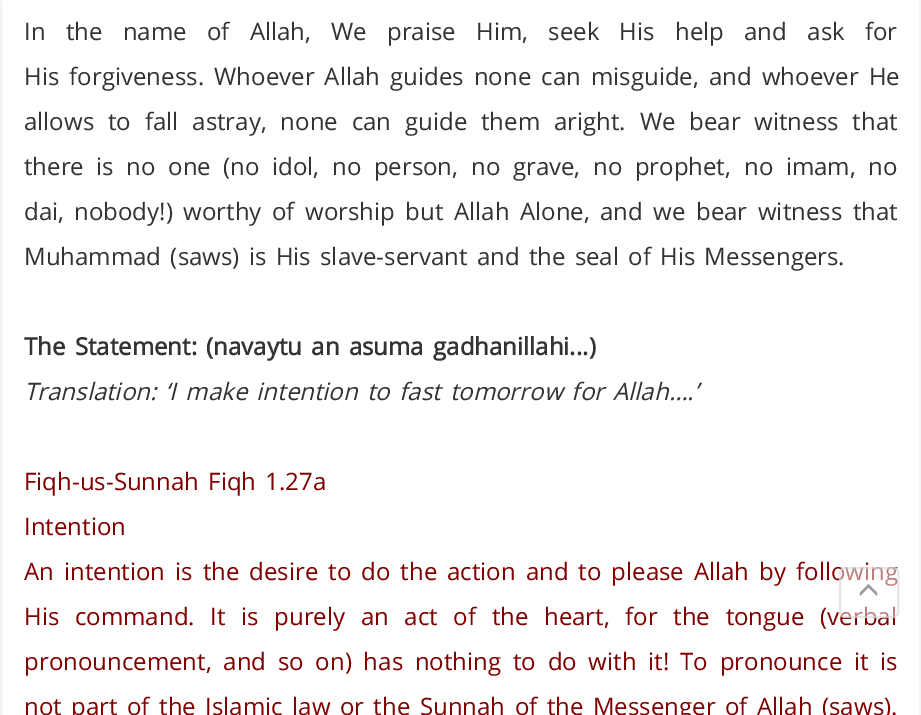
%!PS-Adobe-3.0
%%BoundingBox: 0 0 921 715
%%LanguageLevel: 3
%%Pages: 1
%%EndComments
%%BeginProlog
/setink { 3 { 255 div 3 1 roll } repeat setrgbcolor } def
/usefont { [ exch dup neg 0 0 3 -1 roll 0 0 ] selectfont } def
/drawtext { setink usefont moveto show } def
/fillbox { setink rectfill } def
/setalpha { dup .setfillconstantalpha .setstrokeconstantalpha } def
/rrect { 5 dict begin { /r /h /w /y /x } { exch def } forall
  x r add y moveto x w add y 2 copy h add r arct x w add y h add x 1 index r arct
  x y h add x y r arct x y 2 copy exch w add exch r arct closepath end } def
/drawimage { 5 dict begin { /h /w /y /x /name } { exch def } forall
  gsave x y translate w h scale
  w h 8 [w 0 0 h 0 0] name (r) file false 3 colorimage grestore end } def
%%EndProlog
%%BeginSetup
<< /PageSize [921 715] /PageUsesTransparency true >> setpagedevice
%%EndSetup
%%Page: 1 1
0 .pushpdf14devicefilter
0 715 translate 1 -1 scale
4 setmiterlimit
0 0 921 715 255 255 255 fillbox
244 244 244 setink
2 setlinewidth
1 -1 919 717 rectstroke
/OpenSans-Regular 24 usefont
51 51 51 setink
24 40 moveto 14 0 32 (In the name of Allah, We praise Him, seek His help and ask for) widthshow
24 85 moveto 3.9 0 32 (His forgiveness. Whoever Allah guides none can misguide, and whoever He) widthshow
24 130 moveto 7.6 0 32 (allows to fall astray, none can guide them aright. We bear witness that) widthshow
24 175 moveto 6.25 0 32 (there is no one \(no idol, no person,) widthshow
471 175 moveto 6.25 0 32 (no grave, no prophet,) widthshow
744 175 moveto 6.25 0 32 (no imam,) widthshow
(no) 868 175 /OpenSans-Regular 24 51 51 51 drawtext
(dai,) 24 220 /OpenSans-Regular 24 51 51 51 drawtext
74 220 moveto 4.25 0 32 (nobody!\) worthy of worship but Allah Alone, and we bear witness that) widthshow
24 265 moveto 3 0 32 (Muhammad \(saws\) is His slave-servant and the seal of His Messengers.) widthshow
/OpenSans-Bold 24 usefont
24 355 moveto 3 0 32 (The Statement: \(navaytu an asuma gadhanillahi...\)) widthshow
/OpenSans-Italic 24 usefont
24 400 moveto 3 0 32 (Translation: ‘I make intention to fast tomorrow for Allah….’) widthshow
/OpenSans-Regular 24 usefont
128 0 0 setink
24 490 moveto 3 0 32 (Fiqh-us-Sunnah Fiqh 1.27a) widthshow
(Intention) 24 535 /OpenSans-Regular 24 128 0 0 drawtext
24 580 moveto 3.75 0 32 (An intention is the desire to do the action and to please Allah by following) widthshow
24 625 moveto 9.4 0 32 (His command. It is purely an act of the heart, for the tongue \(verbal) widthshow
24 670 moveto 5.5 0 32 (pronouncement, and so on\) has nothing to do with it!) widthshow
680 670 moveto 5.5 0 32 (To pronounce it is) widthshow
24 715 moveto 3.25 0 32 (not part of the Islamic law or the Sunnah of the Messenger of Allah \(saws\).) widthshow
0.49 setalpha
255 255 255 setink
839 567 60 51 6 rrect fill
204 204 204 setink
840 568 58 49 5 rrect stroke
1 setalpha
(assets/img1.rgb) 859 584 19 12 drawimage
.poppdf14devicefilter showpage
%%EOF
